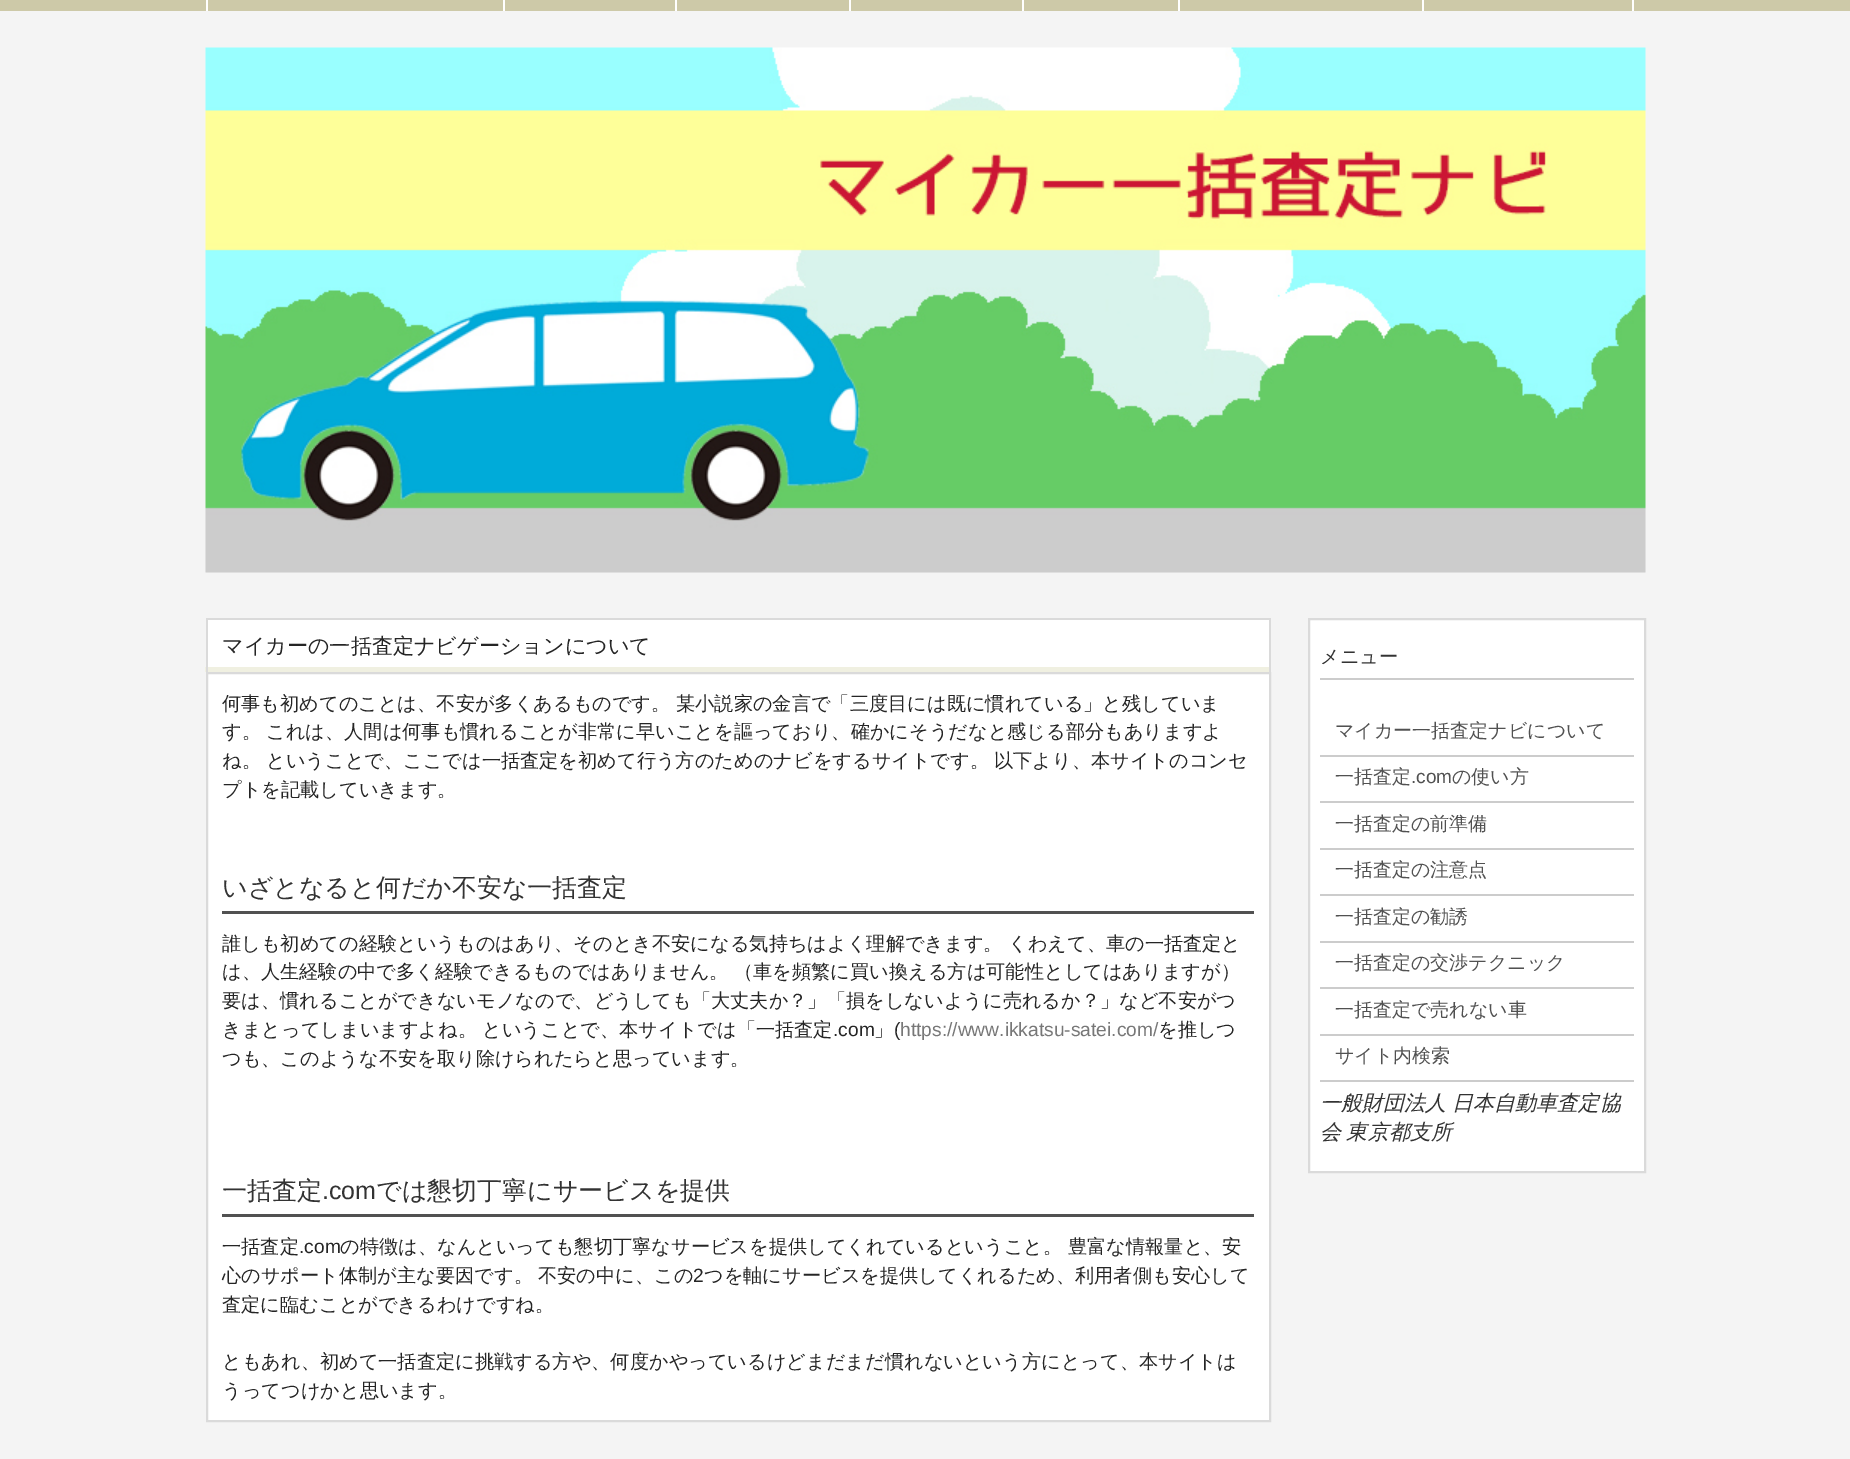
%!PS-Adobe-3.0
%%BoundingBox: 0 0 1850 1459
%%LanguageLevel: 3
%%Pages: 1
%%EndComments
%%BeginProlog
/setink { 3 { 255 div 3 1 roll } repeat setrgbcolor } def
/usefont { [ exch dup neg 0 0 3 -1 roll 0 0 ] selectfont } def
/drawtext { setink usefont moveto show } def
/fillbox { setink rectfill } def
/drawimage { 5 dict begin { /h /w /y /x /name } { exch def } forall
  gsave x y translate w h scale
  w h 8 [w 0 0 h 0 0] name (r) file false 3 colorimage grestore end } def
%%EndProlog
%%BeginSetup
<< /PageSize [1850 1459] >> setpagedevice
%%EndSetup
%%Page: 1 1
0 1459 translate 1 -1 scale
4 setmiterlimit
0 0 1850 1459 244 244 244 fillbox
0 0 1850 11 205 201 168 fillbox
503 0 2 11 255 255 255 fillbox
206 0 2 11 255 255 255 fillbox
675 0 2 11 255 255 255 fillbox
849 0 2 11 255 255 255 fillbox
1022 0 2 11 255 255 255 fillbox
1178 0 2 11 255 255 255 fillbox
1422 0 2 11 255 255 255 fillbox
1632 0 2 11 255 255 255 fillbox
(assets/img1.rgb) 205 47 1441 526 drawimage
208 620 1061 47 255 255 255 fillbox
205 667 1066 5 240 240 225 fillbox
206 618 1065 2 218 218 218 fillbox
1269 618 2 54 218 218 218 fillbox
206 618 2 54 218 218 218 fillbox
(マイカーの一括査定ナビゲーションについて) 222 653 /WenQuanYiZenHei-Medium 21.1 37 37 37 drawtext
255 255 255 setink
207 673 moveto 1270 673 lineto 1270 1421 lineto 207 1421 lineto closepath gsave fill grestore
218 218 218 setink
2 setlinewidth
stroke
(何事も初めてのことは、不安が多くあるものです。) 222 710 /WenQuanYiZenHei-Medium 19.2 37 37 37 drawtext
(某小説家の金言で「三度目には既に慣れている」と残していま) 676 710 /WenQuanYiZenHei-Medium 19.2 37 37 37 drawtext
(す。) 222 738 /WenQuanYiZenHei-Medium 19.2 37 37 37 drawtext
(これは、人間は何事も慣れることが非常に早いことを謳っており、確かにそうだなと感じる部分もありますよ) 266 738 /WenQuanYiZenHei-Medium 19.2 37 37 37 drawtext
(ね。) 222 767 /WenQuanYiZenHei-Medium 19.2 37 37 37 drawtext
(ということで、ここでは一括査定を初めて行う方のためのナビをするサイトです。) 266 767 /WenQuanYiZenHei-Medium 19.2 37 37 37 drawtext
(以下より、本サイトのコンセ) 994 767 /WenQuanYiZenHei-Medium 19.2 37 37 37 drawtext
(プトを記載していきます。) 222 796 /WenQuanYiZenHei-Medium 19.2 37 37 37 drawtext
222 911 1032 3 81 81 81 fillbox
(いざとなると何だか不安な一括査定) 222 896 /WenQuanYiZenHei-Medium 25 51 51 51 drawtext
(誰しも初めての経験というものはあり、そのとき不安になる気持ちはよく理解できます。) 222 950 /WenQuanYiZenHei-Medium 19.2 37 37 37 drawtext
(くわえて、車の一括査定と) 1008 950 /WenQuanYiZenHei-Medium 19.2 37 37 37 drawtext
(は、人生経験の中で多く経験できるものではありません。) 222 978 /WenQuanYiZenHei-Medium 19.2 37 37 37 drawtext
(（車を頻繁に買い換える方は可能性としてはありますが）) 734 978 /WenQuanYiZenHei-Medium 19.2 37 37 37 drawtext
(要は、慣れることができないモノなので、どうしても「大丈夫か？」「損をしないように売れるか？」など不安がつ) 222 1007 /WenQuanYiZenHei-Medium 19.2 37 37 37 drawtext
(きまとってしまいますよね。) 222 1036 /WenQuanYiZenHei-Medium 19.2 37 37 37 drawtext
(ということで、本サイトでは「一括査定) 482 1036 /WenQuanYiZenHei-Medium 19.2 37 37 37 drawtext
(.com) 833 1036 /LiberationSans-Regular 19.2 37 37 37 drawtext
(」) 874 1036 /WenQuanYiZenHei-Medium 19.2 37 37 37 drawtext
(\() 894 1036 /LiberationSans-Regular 19.2 37 37 37 drawtext
(https://www.ikkatsu-satei.com/) 900 1036 /LiberationSans-Regular 19.2 119 119 119 drawtext
(を推しつ) 1158 1036 /WenQuanYiZenHei-Medium 19.2 37 37 37 drawtext
(つも、このような不安を取り除けられたらと思っています。) 222 1065 /WenQuanYiZenHei-Medium 19.2 37 37 37 drawtext
222 1214 1032 3 81 81 81 fillbox
(一括査定) 222 1199 /WenQuanYiZenHei-Medium 25 51 51 51 drawtext
(.com) 322 1199 /LiberationSans-Regular 25 51 51 51 drawtext
(では懇切丁寧にサービスを提供) 376 1199 /WenQuanYiZenHei-Medium 25 51 51 51 drawtext
(一括査定) 222 1253 /WenQuanYiZenHei-Medium 19.2 37 37 37 drawtext
(.com) 299 1253 /LiberationSans-Regular 19.2 37 37 37 drawtext
(の特徴は、なんといっても懇切丁寧なサービスを提供してくれているということ。) 340 1253 /WenQuanYiZenHei-Medium 19.2 37 37 37 drawtext
(豊富な情報量と、安) 1068 1253 /WenQuanYiZenHei-Medium 19.2 37 37 37 drawtext
(心のサポート体制が主な要因です。) 222 1282 /WenQuanYiZenHei-Medium 19.2 37 37 37 drawtext
(不安の中に、この) 538 1282 /WenQuanYiZenHei-Medium 19.2 37 37 37 drawtext
(2) 693 1282 /LiberationSans-Regular 19.2 37 37 37 drawtext
(つを軸にサービスを提供してくれるため、利用者側も安心して) 704 1282 /WenQuanYiZenHei-Medium 19.2 37 37 37 drawtext
(査定に臨むことができるわけですね。) 222 1311 /WenQuanYiZenHei-Medium 19.2 37 37 37 drawtext
(ともあれ、初めて一括査定に挑戦する方や、何度かやっているけどまだまだ慣れないという方にとって、本サイトは) 222 1368 /WenQuanYiZenHei-Medium 19.2 37 37 37 drawtext
(うってつけかと思います。) 222 1397 /WenQuanYiZenHei-Medium 19.2 37 37 37 drawtext
255 255 255 setink
1309 619 moveto 1645 619 lineto 1645 1172 lineto 1309 1172 lineto closepath gsave fill grestore
218 218 218 setink
stroke
1320 678 314 2 204 204 204 fillbox
(メニュー) 1320 663 /WenQuanYiZenHei-Medium 19.2 51 51 51 drawtext
1320 755 314 2 204 204 204 fillbox
(マイカー一括査定ナビについて) 1335 737 /WenQuanYiZenHei-Medium 19 81 81 81 drawtext
1320 801 314 2 204 204 204 fillbox
(一括査定) 1335 783 /WenQuanYiZenHei-Medium 19 81 81 81 drawtext
(.com) 1411 783 /LiberationSans-Regular 19 81 81 81 drawtext
(の使い方) 1452 783 /WenQuanYiZenHei-Medium 19 81 81 81 drawtext
1320 848 314 2 204 204 204 fillbox
(一括査定の前準備) 1335 830 /WenQuanYiZenHei-Medium 19 81 81 81 drawtext
1320 894 314 2 204 204 204 fillbox
(一括査定の注意点) 1335 876 /WenQuanYiZenHei-Medium 19 81 81 81 drawtext
1320 941 314 2 204 204 204 fillbox
(一括査定の勧誘) 1335 923 /WenQuanYiZenHei-Medium 19 81 81 81 drawtext
1320 987 314 2 204 204 204 fillbox
(一括査定の交渉テクニック) 1335 969 /WenQuanYiZenHei-Medium 19 81 81 81 drawtext
1320 1034 314 2 204 204 204 fillbox
(一括査定で売れない車) 1335 1016 /WenQuanYiZenHei-Medium 19 81 81 81 drawtext
1320 1080 314 2 204 204 204 fillbox
(サイト内検索) 1335 1062 /WenQuanYiZenHei-Medium 19 81 81 81 drawtext
/WenQuanYiZenHei-MediumItalic 21.1 usefont
51 51 51 setink
1320 1110 moveto -1 0 32 (一般財団法人 日本自動車査定協) widthshow
1320 1139 moveto -1 0 32 (会 東京都支所) widthshow
showpage
%%EOF
